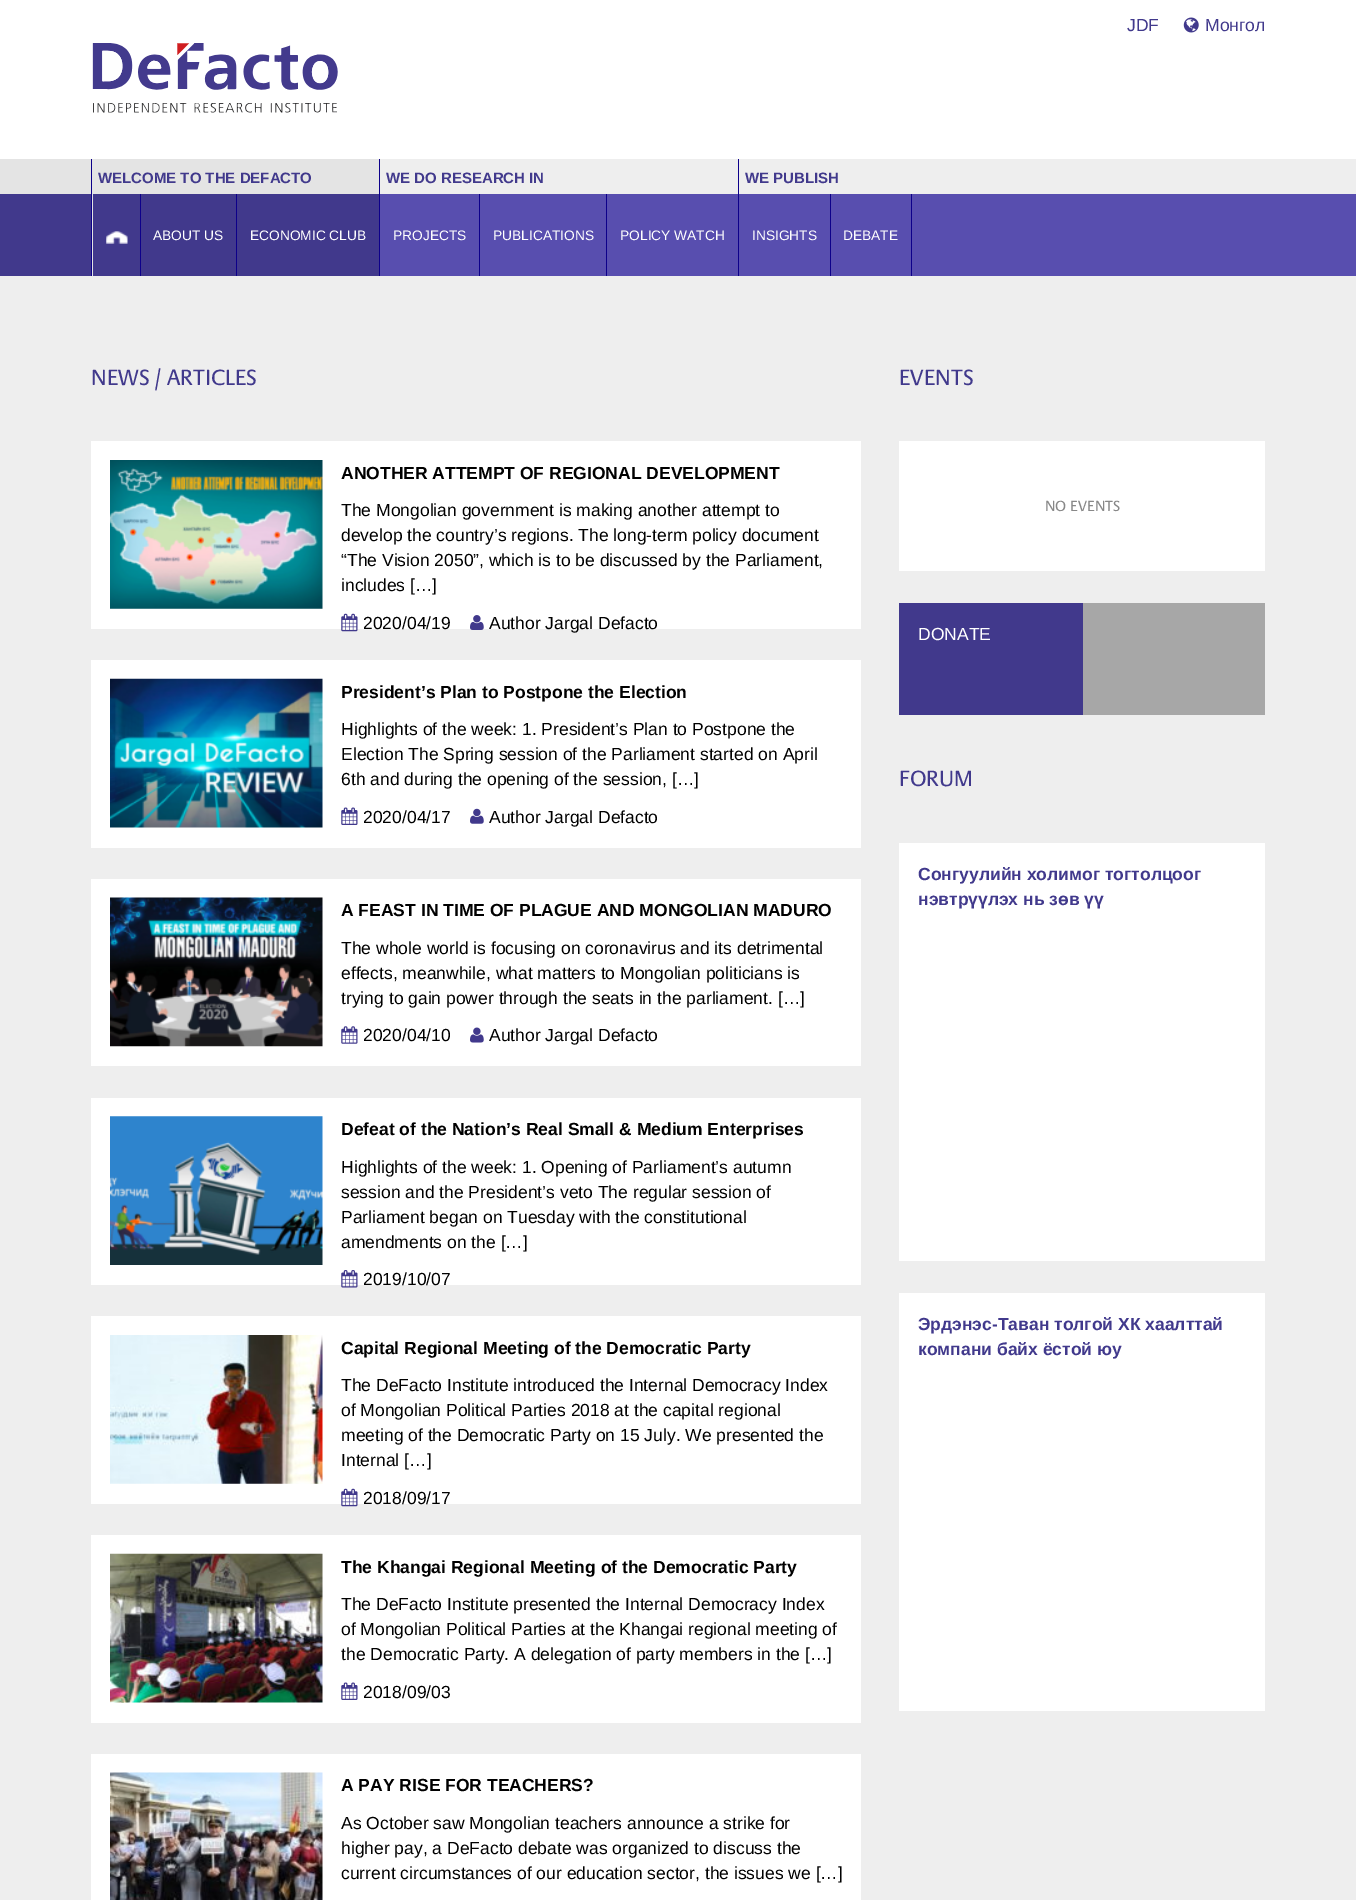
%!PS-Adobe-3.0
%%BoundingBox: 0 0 1356 1900
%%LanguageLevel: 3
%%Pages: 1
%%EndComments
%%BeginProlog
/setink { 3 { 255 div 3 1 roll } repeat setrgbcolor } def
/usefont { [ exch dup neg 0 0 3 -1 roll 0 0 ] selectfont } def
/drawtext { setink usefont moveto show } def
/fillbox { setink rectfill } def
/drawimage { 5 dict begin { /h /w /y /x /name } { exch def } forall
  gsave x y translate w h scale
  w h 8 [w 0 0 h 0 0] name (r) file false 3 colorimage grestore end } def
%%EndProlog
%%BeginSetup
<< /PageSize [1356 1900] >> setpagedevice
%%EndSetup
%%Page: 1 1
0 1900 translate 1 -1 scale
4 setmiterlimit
0 0 1356 1900 238 238 238 fillbox
0 0 1356 159 255 255 255 fillbox
(JDF) 1127 31 /LiberationSans-Regular 17.5 65 57 140 drawtext
(assets/img1.rgb) 1183 17 16 16 drawimage
(Монгол) 1205 31 /LiberationSans-Regular 17.5 65 57 140 drawtext
(assets/img2.rgb) 92 43 246 70 drawimage
0 194 91 82 65 57 140 fillbox
0 159 91 35 228 228 228 fillbox
92 159 287 117 228 228 228 fillbox
91 159 1 117 13 0 138 fillbox
(WELCOME TO THE DEFACTO) 98 183 /LiberationSans-Bold 15 65 57 140 drawtext
93 194 47 82 65 57 140 fillbox
(assets/img3.rgb) 106 231 22 13 drawimage
141 194 95 82 65 57 140 fillbox
140 194 1 82 13 0 138 fillbox
(ABOUT US) 153 240 /LiberationSans-Regular 13.75 255 255 255 drawtext
237 194 142 82 65 57 140 fillbox
236 194 1 82 13 0 138 fillbox
(ECONOMIC CLUB) 250 240 /LiberationSans-Regular 13.75 255 255 255 drawtext
379 159 1 117 13 0 138 fillbox
(WE DO RESEARCH IN) 386 183 /LiberationSans-Bold 15 65 57 140 drawtext
380 194 99 82 88 78 175 fillbox
(PROJECTS) 393 240 /LiberationSans-Regular 13.75 255 255 255 drawtext
480 194 126 82 88 78 175 fillbox
479 194 1 82 13 0 138 fillbox
(PUBLICATIONS) 493 240 /LiberationSans-Regular 13.75 255 255 255 drawtext
607 194 131 82 88 78 175 fillbox
606 194 1 82 13 0 138 fillbox
(POLICY WATCH) 620 240 /LiberationSans-Regular 13.75 255 255 255 drawtext
738 159 1 117 13 0 138 fillbox
(WE PUBLISH) 745 183 /LiberationSans-Bold 15 65 57 140 drawtext
739 194 91 82 88 78 175 fillbox
(INSIGHTS) 752 240 /LiberationSans-Regular 13.75 255 255 255 drawtext
831 194 525 82 88 78 175 fillbox
911 194 1 82 13 0 138 fillbox
830 194 1 82 13 0 138 fillbox
(DEBATE) 843 240 /LiberationSans-Regular 13.75 255 255 255 drawtext
(NEWS / ARTICLES) 91 385 /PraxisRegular-Regular 22.5 65 57 140 drawtext
91 441 770 188 255 255 255 fillbox
(assets/img4.rgb) 110 460 213 149 drawimage
(ANOTHER ATTEMPT OF REGIONAL DEVELOPMENT) 341 479 /LiberationSans-Bold 17.5 0 0 0 drawtext
(The Mongolian government is making another attempt to) 341 516 /LiberationSans-Regular 17.5 0 0 0 drawtext
(develop the country’s regions. The long-term policy document) 341 541 /LiberationSans-Regular 17.5 0 0 0 drawtext
(“The Vision 2050”, which is to be discussed by the Parliament,) 341 566 /LiberationSans-Regular 17.5 0 0 0 drawtext
(includes […]) 341 591 /LiberationSans-Regular 17.5 0 0 0 drawtext
(assets/img5.rgb) 341 613 17 19 drawimage
(2020/04/19) 363 629 /LiberationSans-Regular 17.5 0 0 0 drawtext
(assets/img6.rgb) 470 615 14 15 drawimage
(Author Jargal Defacto) 489 629 /LiberationSans-Regular 17.5 0 0 0 drawtext
91 660 770 188 255 255 255 fillbox
(assets/img7.rgb) 110 678 213 150 drawimage
(President’s Plan to Postpone the Election) 341 698 /LiberationSans-Bold 17.5 0 0 0 drawtext
(Highlights of the week: 1. President’s Plan to Postpone the) 341 735 /LiberationSans-Regular 17.5 0 0 0 drawtext
(Election The Spring session of the Parliament started on April) 341 760 /LiberationSans-Regular 17.5 0 0 0 drawtext
(6th and during the opening of the session, […]) 341 785 /LiberationSans-Regular 17.5 0 0 0 drawtext
(assets/img8.rgb) 341 807 17 18 drawimage
(2020/04/17) 363 823 /LiberationSans-Regular 17.5 0 0 0 drawtext
(assets/img9.rgb) 470 808 14 16 drawimage
(Author Jargal Defacto) 489 823 /LiberationSans-Regular 17.5 0 0 0 drawtext
91 879 770 187 255 255 255 fillbox
(assets/img10.rgb) 110 897 213 150 drawimage
(A FEAST IN TIME OF PLAGUE AND MONGOLIAN MADURO) 341 916 /LiberationSans-Bold 17.5 0 0 0 drawtext
(The whole world is focusing on coronavirus and its detrimental) 341 954 /LiberationSans-Regular 17.5 0 0 0 drawtext
(effects, meanwhile, what matters to Mongolian politicians is) 341 979 /LiberationSans-Regular 17.5 0 0 0 drawtext
(trying to gain power through the seats in the parliament. […]) 341 1004 /LiberationSans-Regular 17.5 0 0 0 drawtext
(assets/img11.rgb) 341 1026 17 18 drawimage
(2020/04/10) 363 1041 /LiberationSans-Regular 17.5 0 0 0 drawtext
(assets/img12.rgb) 470 1027 14 16 drawimage
(Author Jargal Defacto) 489 1041 /LiberationSans-Regular 17.5 0 0 0 drawtext
91 1098 770 187 255 255 255 fillbox
(assets/img13.rgb) 110 1116 213 149 drawimage
(Defeat of the Nation’s Real Small & Medium Enterprises) 341 1135 /LiberationSans-Bold 17.5 0 0 0 drawtext
(Highlights of the week: 1. Opening of Parliament’s autumn) 341 1173 /LiberationSans-Regular 17.5 0 0 0 drawtext
(session and the President’s veto The regular session of) 341 1198 /LiberationSans-Regular 17.5 0 0 0 drawtext
(Parliament began on Tuesday with the constitutional) 341 1223 /LiberationSans-Regular 17.5 0 0 0 drawtext
(amendments on the […]) 341 1248 /LiberationSans-Regular 17.5 0 0 0 drawtext
(assets/img14.rgb) 341 1270 17 18 drawimage
(2019/10/07) 363 1285 /LiberationSans-Regular 17.5 0 0 0 drawtext
91 1316 770 188 255 255 255 fillbox
(assets/img15.rgb) 110 1335 213 149 drawimage
(Capital Regional Meeting of the Democratic Party) 341 1354 /LiberationSans-Bold 17.5 0 0 0 drawtext
(The DeFacto Institute introduced the Internal Democracy Index) 341 1391 /LiberationSans-Regular 17.5 0 0 0 drawtext
(of Mongolian Political Parties 2018 at the capital regional) 341 1416 /LiberationSans-Regular 17.5 0 0 0 drawtext
(meeting of the Democratic Party on 15 July. We presented the) 341 1441 /LiberationSans-Regular 17.5 0 0 0 drawtext
(Internal […]) 341 1466 /LiberationSans-Regular 17.5 0 0 0 drawtext
(assets/img5.rgb) 341 1488 17 19 drawimage
(2018/09/17) 363 1504 /LiberationSans-Regular 17.5 0 0 0 drawtext
91 1535 770 188 255 255 255 fillbox
(assets/img16.rgb) 110 1553 213 150 drawimage
(The Khangai Regional Meeting of the Democratic Party) 341 1573 /LiberationSans-Bold 17.5 0 0 0 drawtext
(The DeFacto Institute presented the Internal Democracy Index) 341 1610 /LiberationSans-Regular 17.5 0 0 0 drawtext
(of Mongolian Political Parties at the Khangai regional meeting of) 341 1635 /LiberationSans-Regular 17.5 0 0 0 drawtext
(the Democratic Party. A delegation of party members in the […]) 341 1660 /LiberationSans-Regular 17.5 0 0 0 drawtext
(assets/img8.rgb) 341 1682 17 18 drawimage
(2018/09/03) 363 1698 /LiberationSans-Regular 17.5 0 0 0 drawtext
91 1754 770 146 255 255 255 fillbox
(assets/img17.rgb) 110 1772 213 128 drawimage
(A PAY RISE FOR TEACHERS?) 341 1791 /LiberationSans-Bold 17.5 0 0 0 drawtext
(As October saw Mongolian teachers announce a strike for) 341 1829 /LiberationSans-Regular 17.5 0 0 0 drawtext
(higher pay, a DeFacto debate was organized to discuss the) 341 1854 /LiberationSans-Regular 17.5 0 0 0 drawtext
(current circumstances of our education sector, the issues we […]) 341 1879 /LiberationSans-Regular 17.5 0 0 0 drawtext
(EVENTS) 899 385 /PraxisRegular-Regular 22.5 65 57 140 drawtext
899 441 366 130 255 255 255 fillbox
(NO EVENTS) 1045 511 /PraxisRegular-Regular 15 136 136 136 drawtext
899 603 184 112 65 57 140 fillbox
(DONATE) 918 640 /LiberationSans-Regular 17.5 255 255 255 drawtext
1083 603 182 112 167 167 167 fillbox
(FORUM) 899 786 /PraxisRegular-Regular 22.5 65 57 140 drawtext
899 843 366 418 255 255 255 fillbox
(Сонгуулийн холимог тогтолцоог) 918 880 /LiberationSans-Bold 17.5 65 57 140 drawtext
(нэвтрүүлэх нь зөв үү) 918 905 /LiberationSans-Bold 17.5 65 57 140 drawtext
899 1293 366 418 255 255 255 fillbox
(Эрдэнэс-Таван толгой ХК хаалттай) 918 1330 /LiberationSans-Bold 17.5 65 57 140 drawtext
(компани байх ёстой юу) 918 1355 /LiberationSans-Bold 17.5 65 57 140 drawtext
showpage
%%EOF
